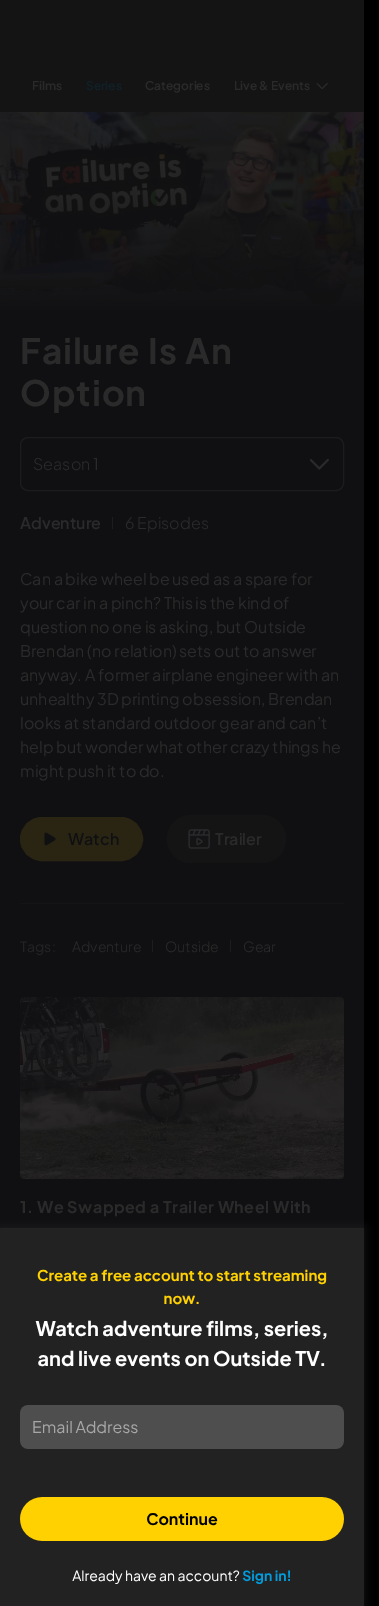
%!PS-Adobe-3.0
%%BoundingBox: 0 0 379 1606
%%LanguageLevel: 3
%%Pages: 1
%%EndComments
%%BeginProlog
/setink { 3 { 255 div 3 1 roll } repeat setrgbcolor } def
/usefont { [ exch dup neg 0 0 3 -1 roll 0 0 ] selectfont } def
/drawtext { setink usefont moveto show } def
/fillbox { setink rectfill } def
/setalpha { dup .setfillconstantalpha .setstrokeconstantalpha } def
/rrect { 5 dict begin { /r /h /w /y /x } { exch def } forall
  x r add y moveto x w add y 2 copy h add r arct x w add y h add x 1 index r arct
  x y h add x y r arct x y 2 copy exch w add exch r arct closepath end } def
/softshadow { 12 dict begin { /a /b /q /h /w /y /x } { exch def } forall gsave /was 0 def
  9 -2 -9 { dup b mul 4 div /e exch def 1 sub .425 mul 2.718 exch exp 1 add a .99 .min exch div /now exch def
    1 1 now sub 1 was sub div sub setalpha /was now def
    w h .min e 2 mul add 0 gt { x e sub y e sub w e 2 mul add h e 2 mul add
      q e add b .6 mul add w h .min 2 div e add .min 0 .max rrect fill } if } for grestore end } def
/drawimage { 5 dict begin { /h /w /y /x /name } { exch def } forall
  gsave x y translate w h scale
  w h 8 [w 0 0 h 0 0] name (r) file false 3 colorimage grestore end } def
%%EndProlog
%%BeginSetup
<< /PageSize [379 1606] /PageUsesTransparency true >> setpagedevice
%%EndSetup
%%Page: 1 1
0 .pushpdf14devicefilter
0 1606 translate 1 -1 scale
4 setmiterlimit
0 0 379 1606 0 0 0 fillbox
0 317 364 911 16 16 18 fillbox
0 0 364 112 20 20 21 fillbox
(Films) 32 90 /PlusJakartaSans-SemiBold 12 42 42 43 drawtext
(Series) 86 90 /PlusJakartaSans-SemiBold 12 16 32 40 drawtext
(Categories) 145 90 /PlusJakartaSans-SemiBold 12 42 42 43 drawtext
(Live & Events) 234 90 /PlusJakartaSans-SemiBold 12 42 42 43 drawtext
(assets/img1.rgb) 316 83 12 7 drawimage
(assets/img2.rgb) 0 112 364 205 drawimage
/PlusJakartaSans-Bold 35 usefont
20 364 moveto 1 0 (Failure Is An) ashow
20 406 moveto 1 0 (Option) ashow
28 28 30 setink
20.5 437.5 323 53 7.5 rrect stroke
(Season 1) 33 470 /PlusJakartaSans-Light 16 42 42 43 drawtext
(assets/img3.rgb) 309 458 20 12 drawimage
(Adventure) 20 529 /PlusJakartaSans-SemiBold 16 42 42 43 drawtext
112 517 1 12 29 29 32 fillbox
(6 Episodes) 125 529 /PlusJakartaSans-Light 16 42 42 43 drawtext
(Can a bike wheel be used as a spare for) 20 585 /PlusJakartaSans-Regular 16 42 42 43 drawtext
(your car in a pinch? This is the kind of) 20 609 /PlusJakartaSans-Regular 16 42 42 43 drawtext
(question no one is asking, but Outside) 20 633 /PlusJakartaSans-Regular 16 42 42 43 drawtext
(Brendan \(no relation\) sets out to answer) 20 657 /PlusJakartaSans-Regular 16 42 42 43 drawtext
(anyway. A former airplane engineer with an) 20 681 /PlusJakartaSans-Regular 16 42 42 43 drawtext
(unhealthy 3D printing obsession, Brendan) 20 705 /PlusJakartaSans-Regular 16 42 42 43 drawtext
(looks at standard outdoor gear and can’t) 20 729 /PlusJakartaSans-Regular 16 42 42 43 drawtext
(help but wonder what other crazy things he) 20 753 /PlusJakartaSans-Regular 16 42 42 43 drawtext
(might push it to do.) 20 777 /PlusJakartaSans-Regular 16 42 42 43 drawtext
42 37 18 setink
21 818 121 42 21 rrect gsave fill grestore
2 setlinewidth
stroke
(assets/img4.rgb) 44 832 12 14 drawimage
(Watch) 68 845 /PlusJakartaSans-SemiBold 16 16 16 18 drawtext
20 20 21 setink
167 815 119 48 24 rrect fill
(assets/img5.rgb) 188 829 22 20 drawimage
(Trailer) 215 845 /PlusJakartaSans-SemiBold 16 42 42 43 drawtext
20 903 324 1 20 20 22 fillbox
(Tags:) 20 952 /PlusJakartaSans-Regular 14 35 35 37 drawtext
(Adventure) 72 952 /PlusJakartaSans-Light 14 42 42 43 drawtext
152 940 1 12 29 29 32 fillbox
(Outside) 165 952 /PlusJakartaSans-Light 14 42 42 43 drawtext
230 940 1 12 29 29 32 fillbox
(Gear) 243 952 /PlusJakartaSans-Light 14 42 42 43 drawtext
(assets/img6.rgb) 20 997 324 182 drawimage
/PlusJakartaSans-Bold 16 usefont
20 1213 moveto 0.5 0 (1. We Swapped a Trailer Wheel With) ashow
51 51 51 setink
0 1228 364 378 0 5 0.4 softshadow
0 1228 364 378 34 34 34 fillbox
(assets/img7.rgb) 20 1269 324 315 drawimage
.poppdf14devicefilter showpage
%%EOF
